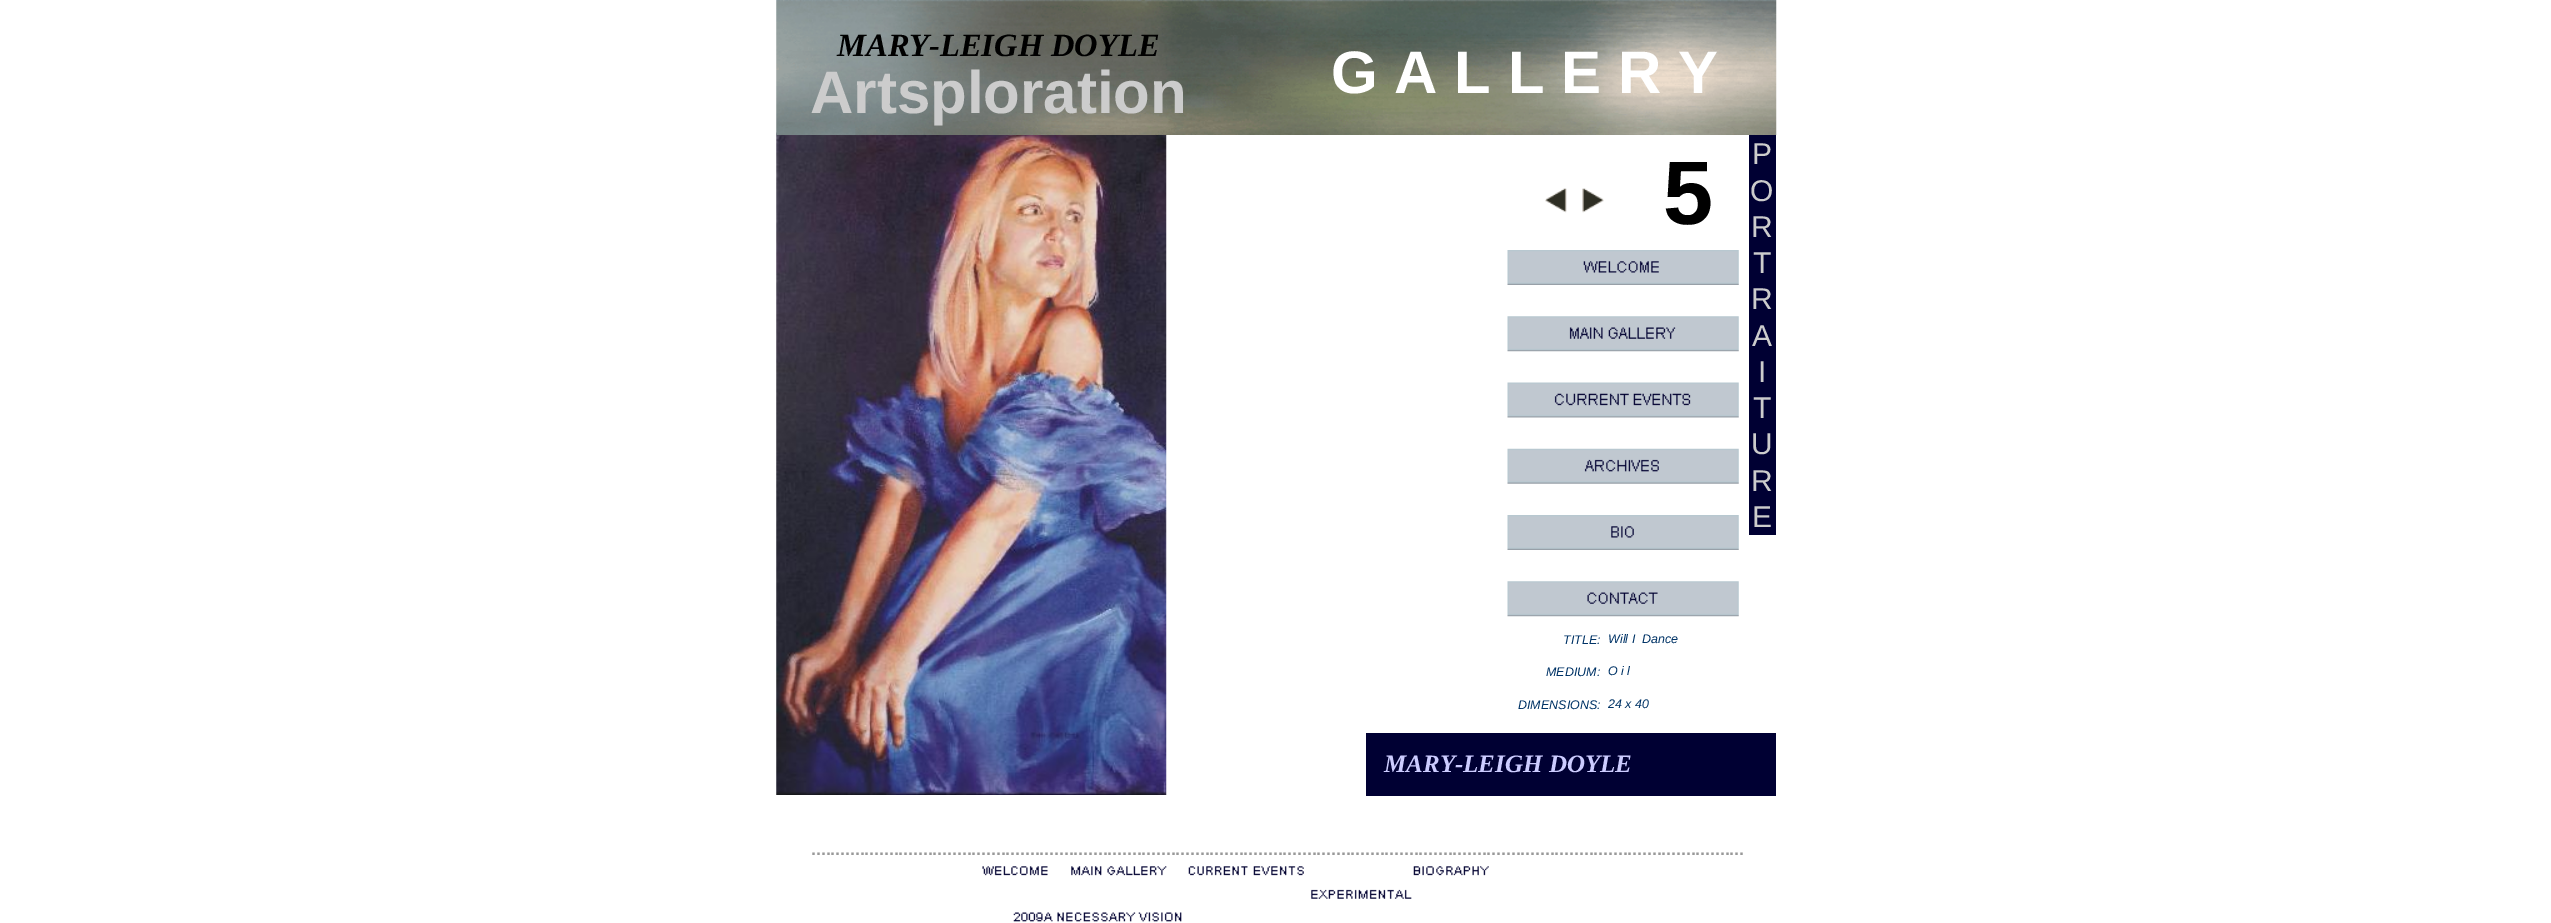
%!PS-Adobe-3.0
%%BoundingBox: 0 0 2551 923
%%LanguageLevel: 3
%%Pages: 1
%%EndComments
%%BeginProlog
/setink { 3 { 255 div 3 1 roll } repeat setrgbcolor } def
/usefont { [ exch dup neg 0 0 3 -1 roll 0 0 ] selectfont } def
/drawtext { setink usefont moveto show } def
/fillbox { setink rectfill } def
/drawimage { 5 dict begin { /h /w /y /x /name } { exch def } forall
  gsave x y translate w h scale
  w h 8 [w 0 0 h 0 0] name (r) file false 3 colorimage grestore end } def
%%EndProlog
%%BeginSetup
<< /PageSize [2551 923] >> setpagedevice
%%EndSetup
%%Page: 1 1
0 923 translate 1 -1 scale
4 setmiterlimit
0 0 2551 923 255 255 255 fillbox
(assets/img2.rgb) 776 132 391 663 drawimage
(assets/img1.rgb) 776 0 1001 135 drawimage
(MARY-LEIGH DOYLE) 837 56 /LiberationSerif-BoldItalic 32.5 0 0 0 drawtext
(Artsploration) 810 113 /LiberationSans-Bold 60 204 204 204 drawtext
(G A L L E R Y) 1331 93 /LiberationSans-Bold 60 255 255 255 drawtext
(assets/img3.rgb) 1545 188 22 25 drawimage
(assets/img4.rgb) 1582 188 22 25 drawimage
(5) 1663 224 /LiberationSans-Bold 90 0 0 0 drawtext
1749 135 27 400 0 0 51 fillbox
(P) 1752 164 /LiberationSans-Regular 30 204 204 204 drawtext
(O) 1750 201 /LiberationSans-Regular 30 204 204 204 drawtext
(R) 1751 237 /LiberationSans-Regular 30 204 204 204 drawtext
(T) 1753 273 /LiberationSans-Regular 30 204 204 204 drawtext
(R) 1751 309 /LiberationSans-Regular 30 204 204 204 drawtext
(A) 1752 346 /LiberationSans-Regular 30 204 204 204 drawtext
(I) 1758 382 /LiberationSans-Regular 30 204 204 204 drawtext
(T) 1753 418 /LiberationSans-Regular 30 204 204 204 drawtext
(U) 1751 454 /LiberationSans-Regular 30 204 204 204 drawtext
(R) 1751 491 /LiberationSans-Regular 30 204 204 204 drawtext
(E) 1752 527 /LiberationSans-Regular 30 204 204 204 drawtext
(assets/img5.rgb) 1507 250 232 35 drawimage
(assets/img6.rgb) 1507 316 232 36 drawimage
(assets/img7.rgb) 1507 382 232 36 drawimage
(assets/img8.rgb) 1507 448 232 36 drawimage
(assets/img9.rgb) 1507 515 232 35 drawimage
(assets/img10.rgb) 1507 581 232 36 drawimage
(TITLE:) 1563 644 /LiberationSans-Italic 12.5 0 51 102 drawtext
(MEDIUM:) 1546 676 /LiberationSans-Italic 12.5 0 51 102 drawtext
(DIMENSIONS:) 1518 709 /LiberationSans-Italic 12.5 0 51 102 drawtext
(Will I  Dance) 1608 643 /LiberationSans-Italic 12.5 0 51 102 drawtext
(O i l) 1608 675 /LiberationSans-Italic 12.5 0 51 102 drawtext
(24 x 40) 1608 708 /LiberationSans-Italic 12.5 0 51 102 drawtext
1366 733 410 63 0 0 51 fillbox
(MARY-LEIGH DOYLE) 1384 772 /LiberationSerif-BoldItalic 25 204 204 255 drawtext
(................................................................................................................................................................................................) 811 855 /LiberationSans-Bold 17.5 153 153 153 drawtext
(assets/img11.rgb) 982 866 66 10 drawimage
(assets/img12.rgb) 1071 866 96 10 drawimage
(assets/img13.rgb) 1188 866 116 10 drawimage
(assets/img14.rgb) 1413 866 76 10 drawimage
(assets/img15.rgb) 1311 889 101 10 drawimage
(assets/img16.rgb) 1013 912 169 10 drawimage
showpage
%%EOF
